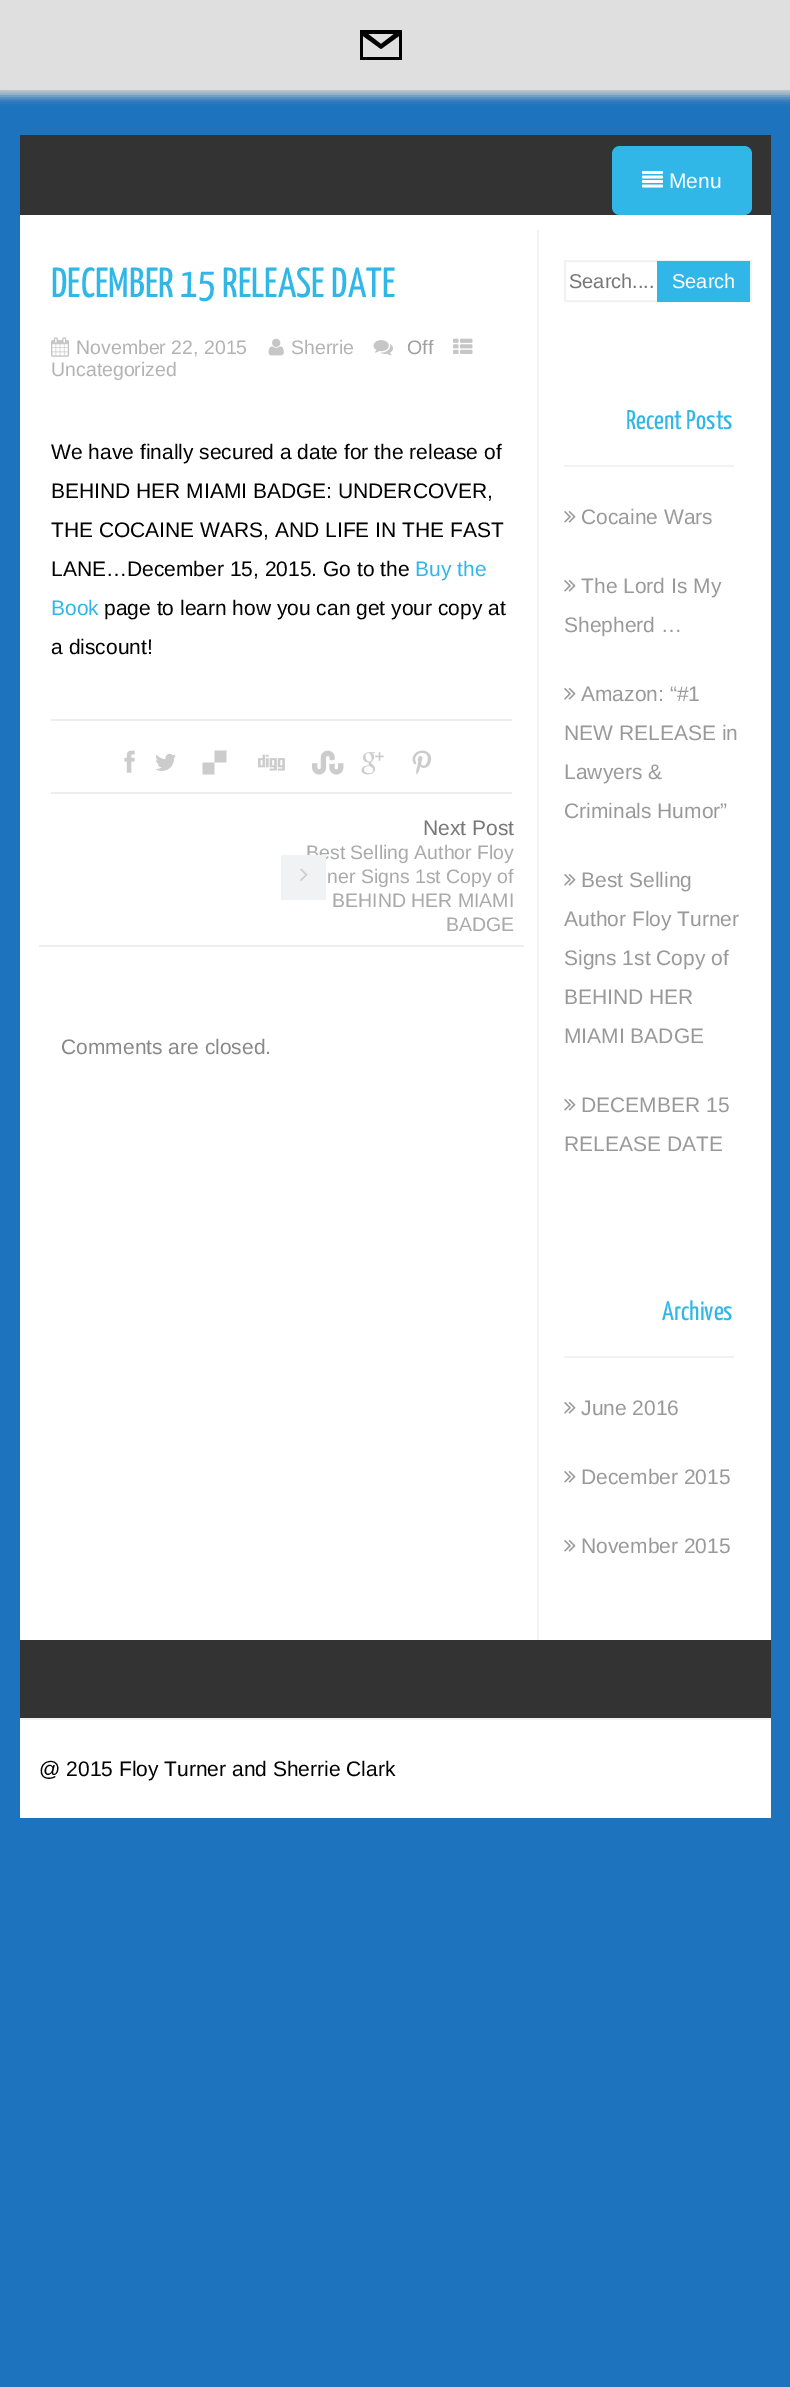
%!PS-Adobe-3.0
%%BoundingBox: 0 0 790 2387
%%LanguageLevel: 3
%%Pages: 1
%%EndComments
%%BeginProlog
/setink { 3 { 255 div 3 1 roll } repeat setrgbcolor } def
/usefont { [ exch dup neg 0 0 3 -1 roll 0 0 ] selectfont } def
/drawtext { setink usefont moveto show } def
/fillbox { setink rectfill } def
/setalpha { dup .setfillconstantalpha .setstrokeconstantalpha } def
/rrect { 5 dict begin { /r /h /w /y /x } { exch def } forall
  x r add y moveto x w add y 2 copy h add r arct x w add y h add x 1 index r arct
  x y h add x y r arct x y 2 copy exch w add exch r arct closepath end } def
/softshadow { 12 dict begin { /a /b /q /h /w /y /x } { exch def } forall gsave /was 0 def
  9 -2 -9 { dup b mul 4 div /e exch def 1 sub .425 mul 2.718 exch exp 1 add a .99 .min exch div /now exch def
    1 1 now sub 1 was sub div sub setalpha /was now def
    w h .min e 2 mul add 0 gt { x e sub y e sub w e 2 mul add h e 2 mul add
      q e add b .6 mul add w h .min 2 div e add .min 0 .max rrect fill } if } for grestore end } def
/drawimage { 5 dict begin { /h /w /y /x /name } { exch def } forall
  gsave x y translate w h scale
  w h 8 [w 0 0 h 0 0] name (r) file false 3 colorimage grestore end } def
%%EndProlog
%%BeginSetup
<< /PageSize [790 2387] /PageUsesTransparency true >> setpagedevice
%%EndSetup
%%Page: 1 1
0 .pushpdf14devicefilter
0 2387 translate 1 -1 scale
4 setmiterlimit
0 0 790 2387 30 115 190 fillbox
204 204 204 setink
-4 -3 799 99 0 4.5 1 softshadow
0 0 790 90 223 223 223 fillbox
0 0 0 setink
360 30 moveto 360 60 lineto 402 60 lineto 402 30 lineto closepath 394 34 moveto 381 44 lineto 368 34 lineto closepath 399 57 moveto 363 57 lineto 363 36 lineto 381 49 lineto 399 36 lineto closepath fill
20 135 751 80 51 51 51 fillbox
48 183 232 setink
612 146 140 69 8 rrect fill
(assets/img1.rgb) 642 171 21 17 drawimage
(Menu) 669 188 /LiberationSans-Regular 21 255 255 255 drawtext
20 215 751 1425 255 255 255 fillbox
(DECEMBER 15 RELEASE DATE) 51 297 /YanoneKaffeesatz-Regular 42 48 183 232 drawtext
(assets/img2.rgb) 51 337 19 20 drawimage
(November 22, 2015) 76 354 /LiberationSans-Regular 19.5 179 179 179 drawtext
(assets/img3.rgb) 268 338 16 18 drawimage
(Sherrie) 291 354 /LiberationSans-Regular 19.5 179 179 179 drawtext
(assets/img4.rgb) 373 340 20 16 drawimage
(Off) 407 354 /LiberationSans-Regular 19.5 160 160 160 drawtext
(assets/img5.rgb) 453 338 20 16 drawimage
(Uncategorized) 51 376 /LiberationSans-Regular 19.5 179 179 179 drawtext
(We have finally secured a date for the release of) 51 459 /LiberationSans-Regular 21 0 0 0 drawtext
(BEHIND HER MIAMI BADGE: UNDERCOVER,) 51 498 /LiberationSans-Regular 21 0 0 0 drawtext
(THE COCAINE WARS, AND LIFE IN THE FAST) 51 537 /LiberationSans-Regular 21 0 0 0 drawtext
(LANE…December 15, 2015. Go to the) 51 576 /LiberationSans-Regular 21 0 0 0 drawtext
(Buy the) 415 576 /LiberationSans-Regular 21 48 183 232 drawtext
(Book) 51 615 /LiberationSans-Regular 21 48 183 232 drawtext
(page to learn how you can get your copy at) 104 615 /LiberationSans-Regular 21 0 0 0 drawtext
(a discount!) 51 654 /LiberationSans-Regular 21 0 0 0 drawtext
51 719 461 2 237 237 237 fillbox
51 792 461 2 237 237 237 fillbox
(assets/img6.rgb) 124 750 11 23 drawimage
(assets/img7.rgb) 155 753 21 18 drawimage
204 204 204 setink
202.5 774.5 moveto 202.5 762.5 lineto 214.5 762.5 lineto 214.5 774.5 lineto closepath 214.5 762.5 moveto 214.5 750.5 lineto 226.5 750.5 lineto 226.5 762.5 lineto closepath fill
(assets/img8.rgb) 258 754 27 17 drawimage
(assets/img9.rgb) 312 750 32 25 drawimage
(assets/img10.rgb) 361 752 23 23 drawimage
(assets/img11.rgb) 412 750 20 25 drawimage
39 945 485 2 237 237 237 fillbox
(Next Post) 423 835 /LiberationSans-Regular 21 119 119 119 drawtext
(Best Selling Author Floy) 306 859 /LiberationSans-Regular 19.5 170 170 170 drawtext
281 855 45 45 241 242 243 fillbox
(assets/img12.rgb) 300 868 8 13 drawimage
(ner Signs 1st Copy of) 327 883 /LiberationSans-Regular 19.5 170 170 170 drawtext
(BEHIND HER MIAMI) 332 907 /LiberationSans-Regular 19.5 170 170 170 drawtext
(BADGE) 446 931 /LiberationSans-Regular 19.5 170 170 170 drawtext
(Comments are closed.) 61 1054 /LiberationSans-Regular 21 136 136 136 drawtext
537 230 2 1410 242 242 242 fillbox
2 setlinewidth
565 261 186 40 rectstroke
(Search....) 569 288 /LiberationSans-Regular 20 119 119 119 drawtext
657 261 93 41 48 183 232 fillbox
(Search) 672 288 /LiberationSans-Regular 20 255 255 255 drawtext
564 465 170 2 242 242 242 fillbox
(Recent Posts) 626 429 /YanoneKaffeesatz-Regular 27 48 183 232 drawtext
(assets/img13.rgb) 564 511 12 12 drawimage
(Cocaine Wars) 581 524 /LiberationSans-Regular 21 153 153 153 drawtext
(assets/img13.rgb) 564 580 12 12 drawimage
(The Lord Is My) 581 593 /LiberationSans-Regular 21 153 153 153 drawtext
(Shepherd …) 564 632 /LiberationSans-Regular 21 153 153 153 drawtext
(assets/img13.rgb) 564 688 12 12 drawimage
(Amazon: “#1) 581 701 /LiberationSans-Regular 21 153 153 153 drawtext
(NEW RELEASE in) 564 740 /LiberationSans-Regular 21 153 153 153 drawtext
(Lawyers &) 564 779 /LiberationSans-Regular 21 153 153 153 drawtext
(Criminals Humor”) 564 818 /LiberationSans-Regular 21 153 153 153 drawtext
(assets/img13.rgb) 564 874 12 12 drawimage
(Best Selling) 581 887 /LiberationSans-Regular 21 153 153 153 drawtext
(Author Floy Turner) 564 926 /LiberationSans-Regular 21 153 153 153 drawtext
(Signs 1st Copy of) 564 965 /LiberationSans-Regular 21 153 153 153 drawtext
(BEHIND HER) 564 1004 /LiberationSans-Regular 21 153 153 153 drawtext
(MIAMI BADGE) 564 1043 /LiberationSans-Regular 21 153 153 153 drawtext
(assets/img13.rgb) 564 1099 12 12 drawimage
(DECEMBER 15) 581 1112 /LiberationSans-Regular 21 153 153 153 drawtext
(RELEASE DATE) 564 1151 /LiberationSans-Regular 21 153 153 153 drawtext
564 1356 170 2 242 242 242 fillbox
(Archives) 662 1320 /YanoneKaffeesatz-Regular 27 48 183 232 drawtext
(assets/img13.rgb) 564 1402 12 12 drawimage
(June 2016) 581 1415 /LiberationSans-Regular 21 153 153 153 drawtext
(assets/img13.rgb) 564 1471 12 12 drawimage
(December 2015) 581 1484 /LiberationSans-Regular 21 153 153 153 drawtext
(assets/img13.rgb) 564 1540 12 12 drawimage
(November 2015) 581 1553 /LiberationSans-Regular 21 153 153 153 drawtext
20 1720 751 98 255 255 255 fillbox
20 1640 751 78 51 51 51 fillbox
20 1718 751 2 242 242 242 fillbox
(@ 2015 Floy Turner and Sherrie Clark) 39 1776 /LiberationSans-Regular 21 0 0 0 drawtext
.poppdf14devicefilter showpage
%%EOF
